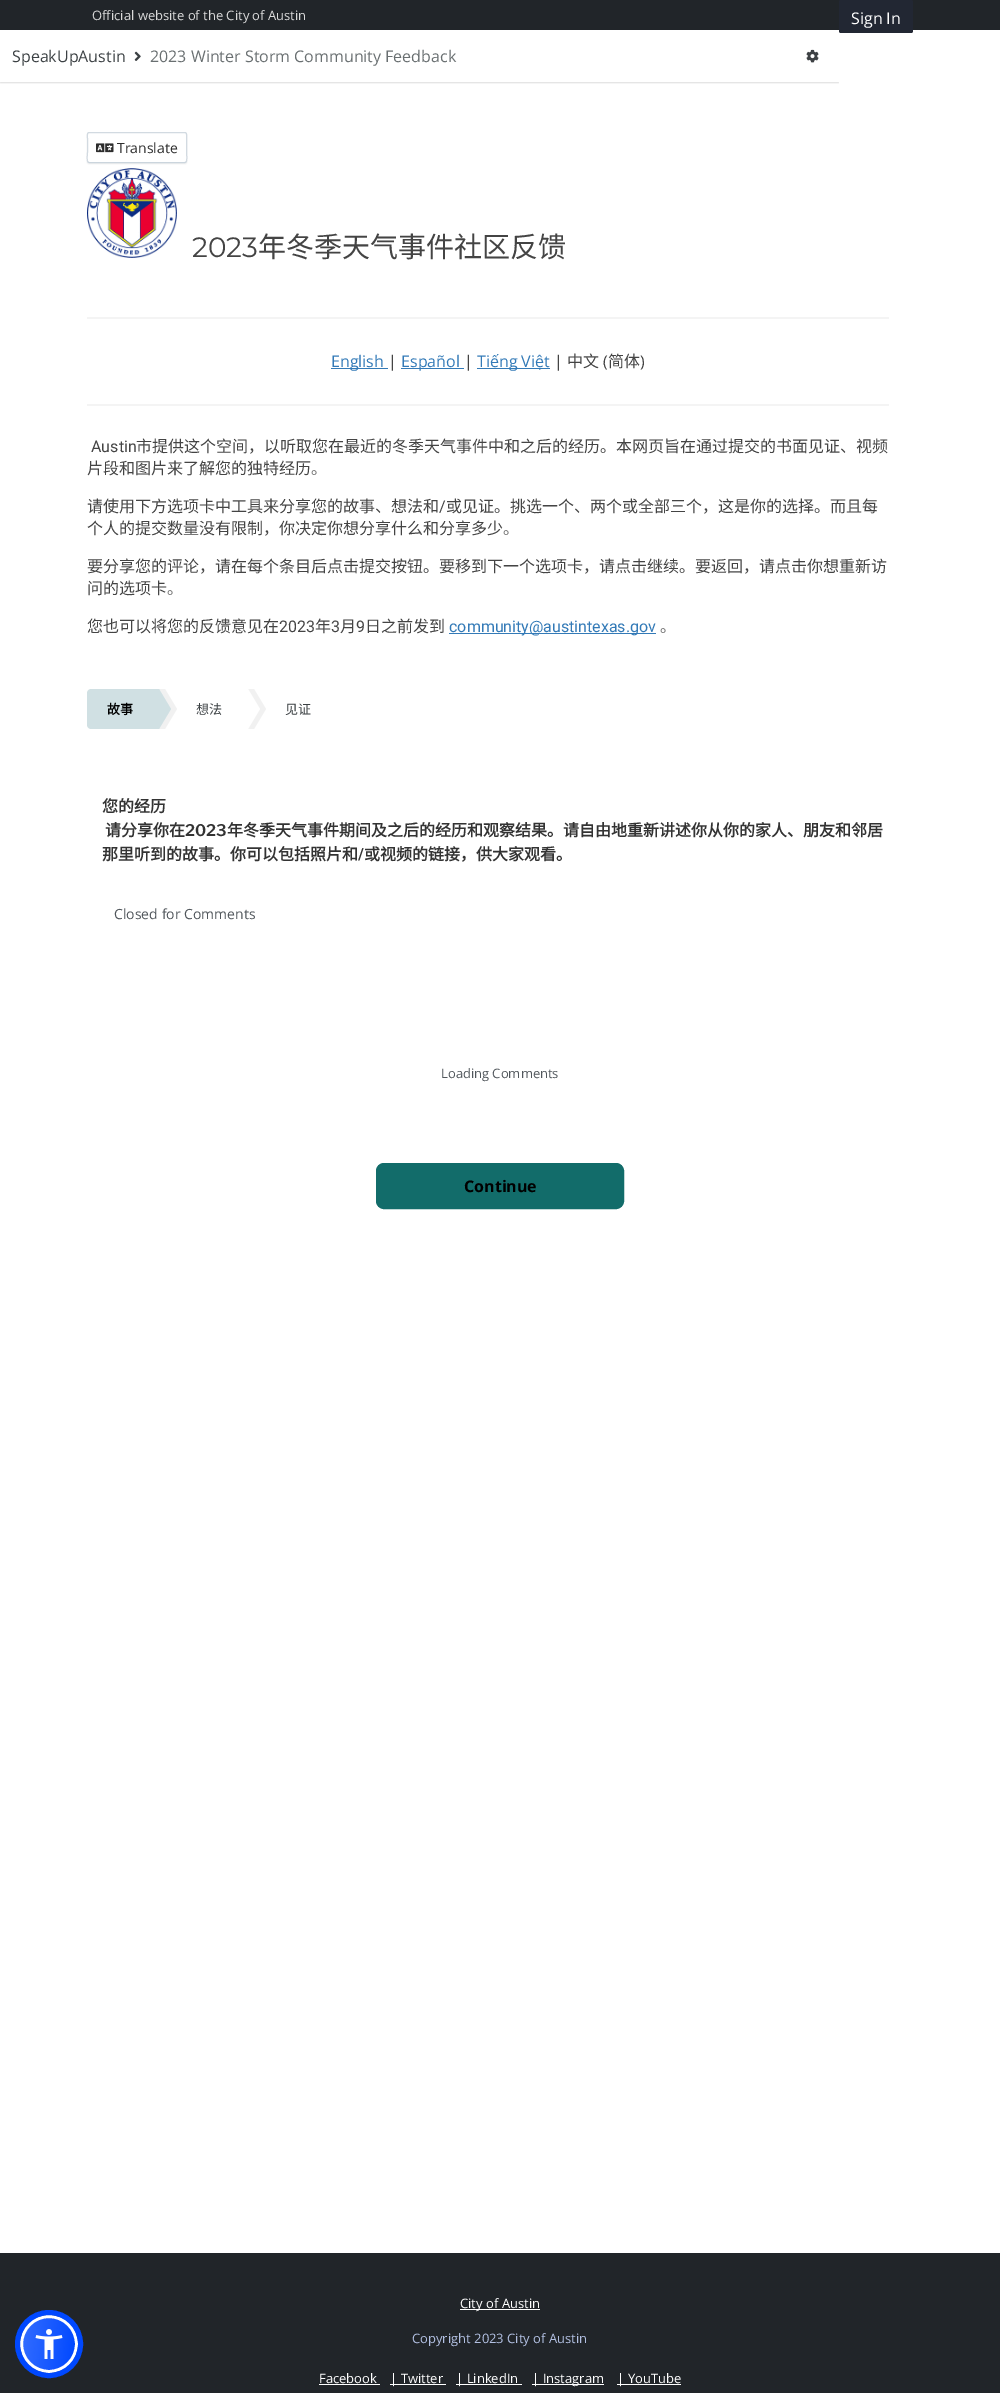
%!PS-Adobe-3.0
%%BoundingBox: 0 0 1000 2393
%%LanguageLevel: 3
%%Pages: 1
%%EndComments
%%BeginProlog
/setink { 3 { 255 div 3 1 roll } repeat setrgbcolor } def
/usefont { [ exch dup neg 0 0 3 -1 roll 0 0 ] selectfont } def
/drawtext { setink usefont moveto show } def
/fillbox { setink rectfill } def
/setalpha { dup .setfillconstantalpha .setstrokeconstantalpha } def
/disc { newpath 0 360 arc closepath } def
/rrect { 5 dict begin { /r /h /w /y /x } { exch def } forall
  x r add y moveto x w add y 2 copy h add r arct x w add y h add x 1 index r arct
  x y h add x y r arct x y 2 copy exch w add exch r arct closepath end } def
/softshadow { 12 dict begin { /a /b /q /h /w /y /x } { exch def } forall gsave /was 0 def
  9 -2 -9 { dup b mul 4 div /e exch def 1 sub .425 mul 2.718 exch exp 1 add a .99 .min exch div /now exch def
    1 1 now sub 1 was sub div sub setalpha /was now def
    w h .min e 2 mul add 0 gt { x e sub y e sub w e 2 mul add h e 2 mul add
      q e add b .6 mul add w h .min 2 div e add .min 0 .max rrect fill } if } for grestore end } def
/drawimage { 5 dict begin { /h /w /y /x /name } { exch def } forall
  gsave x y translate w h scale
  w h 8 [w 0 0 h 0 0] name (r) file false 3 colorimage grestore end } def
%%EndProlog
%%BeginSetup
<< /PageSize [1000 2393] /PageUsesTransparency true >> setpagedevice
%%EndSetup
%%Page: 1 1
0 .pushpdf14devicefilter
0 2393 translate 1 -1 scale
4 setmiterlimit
0 0 1000 2393 255 255 255 fillbox
0 0 1000 30 33 37 41 fillbox
(Official website of the City of Austin) 92 20 /OpenSans-Regular 13 219 219 219 drawtext
34 39 51 setink
839 0 74 33 2 rrect fill
(Sign In) 851 24 /OpenSans-Regular 16 255 255 255 drawtext
0 82 839 1 242 242 242 fillbox
gsave
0 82 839 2 rectclip
0 0 0 setink
0 32 839 52 0 1 0.05 softshadow
grestore
(SpeakUpAustin) 12 62 /OpenSans-Regular 16 60 65 68 drawtext
(assets/img1.rgb) 134 51 7 10 drawimage
(2023 Winter Storm Community Feedback) 150 62 /OpenSans-Regular 16 105 111 113 drawtext
(assets/img2.rgb) 806 49 13 14 drawimage
gsave
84 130 moveto 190 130 lineto 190 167 lineto 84 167 lineto closepath 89 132 moveto 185 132 lineto 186 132 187 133 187 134 curveto 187 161 lineto 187 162 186 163 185 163 curveto 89 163 lineto 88 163 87 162 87 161 curveto 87 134 lineto 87 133 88 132 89 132 curveto closepath eoclip newpath
90 90 90 setink
87 133 100 31 2 0.5 0.1 softshadow
grestore
203 213 221 setink
186 162 moveto 185 162.5 lineto 89 162.5 lineto 88 162 lineto stroke
210 218 225 setink
88 162 moveto 86.5 160.5 87.5 154 87.5 152 curveto 87.5 138.5 lineto 87.5 138 86.5 132.5 89 132.5 curveto 185 132.5 lineto 187.5 132.5 186.5 138 186.5 138.5 curveto 186.5 152 lineto 186.5 154 187.5 160.5 186 162 curveto stroke
(assets/img3.rgb) 96 143 18 10 drawimage
(Translate) 117 153 /OpenSans-Regular 14 45 45 45 drawtext
(assets/img4.rgb) 87 168 90 90 drawimage
(2023) 192 257 /Montserrat-Regular 28 68 68 68 drawtext
(年冬季天气事件社区反馈) 258 257 /NotoSansCJKSC-Regular 28 68 68 68 drawtext
87 317 802 2 244 244 244 fillbox
331 368 57 1 51 122 183 fillbox
(English) 331 367 /OpenSans-Regular 16 51 122 183 drawtext
(|) 388 367 /OpenSans-Regular 16 68 68 68 drawtext
401 368 63 1 51 122 183 fillbox
(Español) 401 367 /OpenSans-Regular 16 51 122 183 drawtext
(|) 464 367 /OpenSans-Regular 16 68 68 68 drawtext
477 368 73 1 51 122 183 fillbox
(Tiếng Việt) 477 367 /OpenSans-Regular 16 51 122 183 drawtext
(|) 554 367 /OpenSans-Regular 16 68 68 68 drawtext
(中文) 567 367 /NotoSansCJKSC-Regular 16 68 68 68 drawtext
(\() 603 367 /OpenSans-Regular 16 68 68 68 drawtext
(简体) 608 367 /NotoSansCJKSC-Regular 16 68 68 68 drawtext
(\)) 640 367 /OpenSans-Regular 16 68 68 68 drawtext
87 404 802 2 244 244 244 fillbox
(Austin) 91 452 /Roboto-Regular 16 68 68 68 drawtext
(市提供这个空间，以听取您在最近的冬季天气事件中和之后的经历。本网页旨在通过提交的书面见证、视频) 136 452 /NotoSansCJKSC-Regular 16 68 68 68 drawtext
(片段和图片来了解您的独特经历) 87 474 /NotoSansCJKSC-Regular 16 68 68 68 drawtext
(。) 311 474 /NotoSansCJKSC-Regular 16 105 105 105 drawtext
(请使用下方选项卡中工具来分享您的故事、想法和) 87 512 /NotoSansCJKSC-Regular 16 68 68 68 drawtext
(/) 439 512 /Roboto-Regular 16 68 68 68 drawtext
(或见证。挑选一个、两个或全部三个，这是你的选择。而且每) 446 512 /NotoSansCJKSC-Regular 16 68 68 68 drawtext
(个人的提交数量没有限制，你决定你想分享什么和分享多少) 87 534 /NotoSansCJKSC-Regular 16 68 68 68 drawtext
(。) 503 534 /NotoSansCJKSC-Regular 16 105 105 105 drawtext
(要分享您的评论，请在每个条目后点击提交按钮。要移到下一个选项卡，请点击继续。要返回，请点击你想重新访) 87 572 /NotoSansCJKSC-Regular 16 68 68 68 drawtext
(问的选项卡) 87 594 /NotoSansCJKSC-Regular 16 68 68 68 drawtext
(。) 167 594 /NotoSansCJKSC-Regular 16 105 105 105 drawtext
(您也可以将您的反馈意见在) 87 632 /NotoSansCJKSC-Regular 16 68 68 68 drawtext
(2023) 279 632 /Roboto-Regular 16 68 68 68 drawtext
(年) 315 632 /NotoSansCJKSC-Regular 16 68 68 68 drawtext
(3) 331 632 /Roboto-Regular 16 68 68 68 drawtext
(月) 340 632 /NotoSansCJKSC-Regular 16 68 68 68 drawtext
(9) 356 632 /Roboto-Regular 16 68 68 68 drawtext
(日之前发到) 365 632 /NotoSansCJKSC-Regular 16 68 68 68 drawtext
449 633 207 1 51 122 183 fillbox
(community@austintexas.gov) 449 632 /Roboto-Regular 16 51 122 183 drawtext
(。) 660 632 /NotoSansCJKSC-Regular 16 105 105 105 drawtext
208 224 227 setink
91 689 moveto 141 689 lineto 141 729 lineto 91 729 lineto 89 729 87 727 87 725 curveto 87 693 lineto 87 691 89 689 91 689 curveto closepath fill
241 241 241 setink
165 689 moveto 147 689 lineto 147 729 lineto 165 729 lineto 177 709 lineto closepath fill
208 224 227 setink
159 689 moveto 141 689 lineto 141 729 lineto 159 729 lineto 171 709 lineto closepath fill
(故事) 107 714 /NotoSansCJKSC-Bold 13 0 0 0 drawtext
241 241 241 setink
254 689 moveto 236 689 lineto 236 729 lineto 254 729 lineto 266 709 lineto closepath fill
255 255 255 setink
248 689 moveto 230 689 lineto 230 729 lineto 248 729 lineto 260 709 lineto closepath fill
(想法) 196 714 /NotoSansCJKSC-Regular 13 60 65 68 drawtext
(见证) 285 714 /NotoSansCJKSC-Regular 13 60 65 68 drawtext
(您的经历) 102 812 /NotoSansCJKSC-Bold 16 51 51 51 drawtext
(请分享你在) 105 836 /NotoSansCJKSC-Bold 16 51 51 51 drawtext
(2023) 185 836 /LibreFranklin-SemiBold 16 51 51 51 drawtext
(年冬季天气事件期间及之后的经历和观察结果。请自由地重新讲述你从你的家人、朋友和邻居) 227 836 /NotoSansCJKSC-Bold 16 51 51 51 drawtext
(那里听到的故事。你可以包括照片和) 102 860 /NotoSansCJKSC-Bold 16 51 51 51 drawtext
(/) 358 860 /LibreFranklin-SemiBold 16 51 51 51 drawtext
(或视频的链接，供大家观看。) 364 860 /NotoSansCJKSC-Bold 16 51 51 51 drawtext
(Closed for Comments) 114 919 /OpenSans-Regular 14 81 87 92 drawtext
(Loading Comments) 441 1078 /OpenSans-Regular 13 81 87 92 drawtext
18 108 106 setink
376.5 1163.5 247 45 7.5 rrect gsave fill grestore
stroke
(Continue) 464 1192 /OpenSans-Bold 16 0 0 0 drawtext
0 2253 1000 140 33 37 41 fillbox
460 2309 80 1 255 255 255 fillbox
(City of Austin) 460 2308 /OpenSans-Regular 13 255 255 255 drawtext
(Copyright 2023 City of Austin) 412 2343 /OpenSans-Regular 13 178 192 226 drawtext
(Facebook) 319 2383 /OpenSans-Regular 13 255 255 255 drawtext
319 2384 61 1 255 255 255 fillbox
390 2384 56 1 255 255 255 fillbox
(| Twitter) 390 2383 /OpenSans-Regular 13 255 255 255 drawtext
456 2384 66 1 255 255 255 fillbox
(| LinkedIn) 456 2383 /OpenSans-Regular 13 255 255 255 drawtext
532 2384 72 1 255 255 255 fillbox
(| Instagram) 532 2383 /OpenSans-Regular 13 255 255 255 drawtext
617 2384 64 1 255 255 255 fillbox
(| YouTube) 617 2383 /OpenSans-Regular 13 255 255 255 drawtext
93 100 148 setink
20 2317 58 58 29 2 0.2 softshadow
gsave
20 2315 58 58 29 rrect clip newpath
gsave 23 2318 moveto 75 2318 lineto 75 2370 lineto 23 2370 lineto closepath clip newpath
<< /ShadingType 2 /ColorSpace /DeviceRGB /Coords [21 2341 77 2347] /Extend [true true] /Function << /FunctionType 2 /Domain [0 1] /C0 [0.196 0.424 1] /C1 [0 0.282 1] /N 1 >> >> shfill grestore
grestore
255 255 255 setink
3 setlinewidth
49 2344 27.5 disc stroke
0 72 255 setink
5 setlinewidth
49 2344 31.5 disc stroke
(assets/img5.rgb) 35 2329 28 30 drawimage
.poppdf14devicefilter showpage
%%EOF
